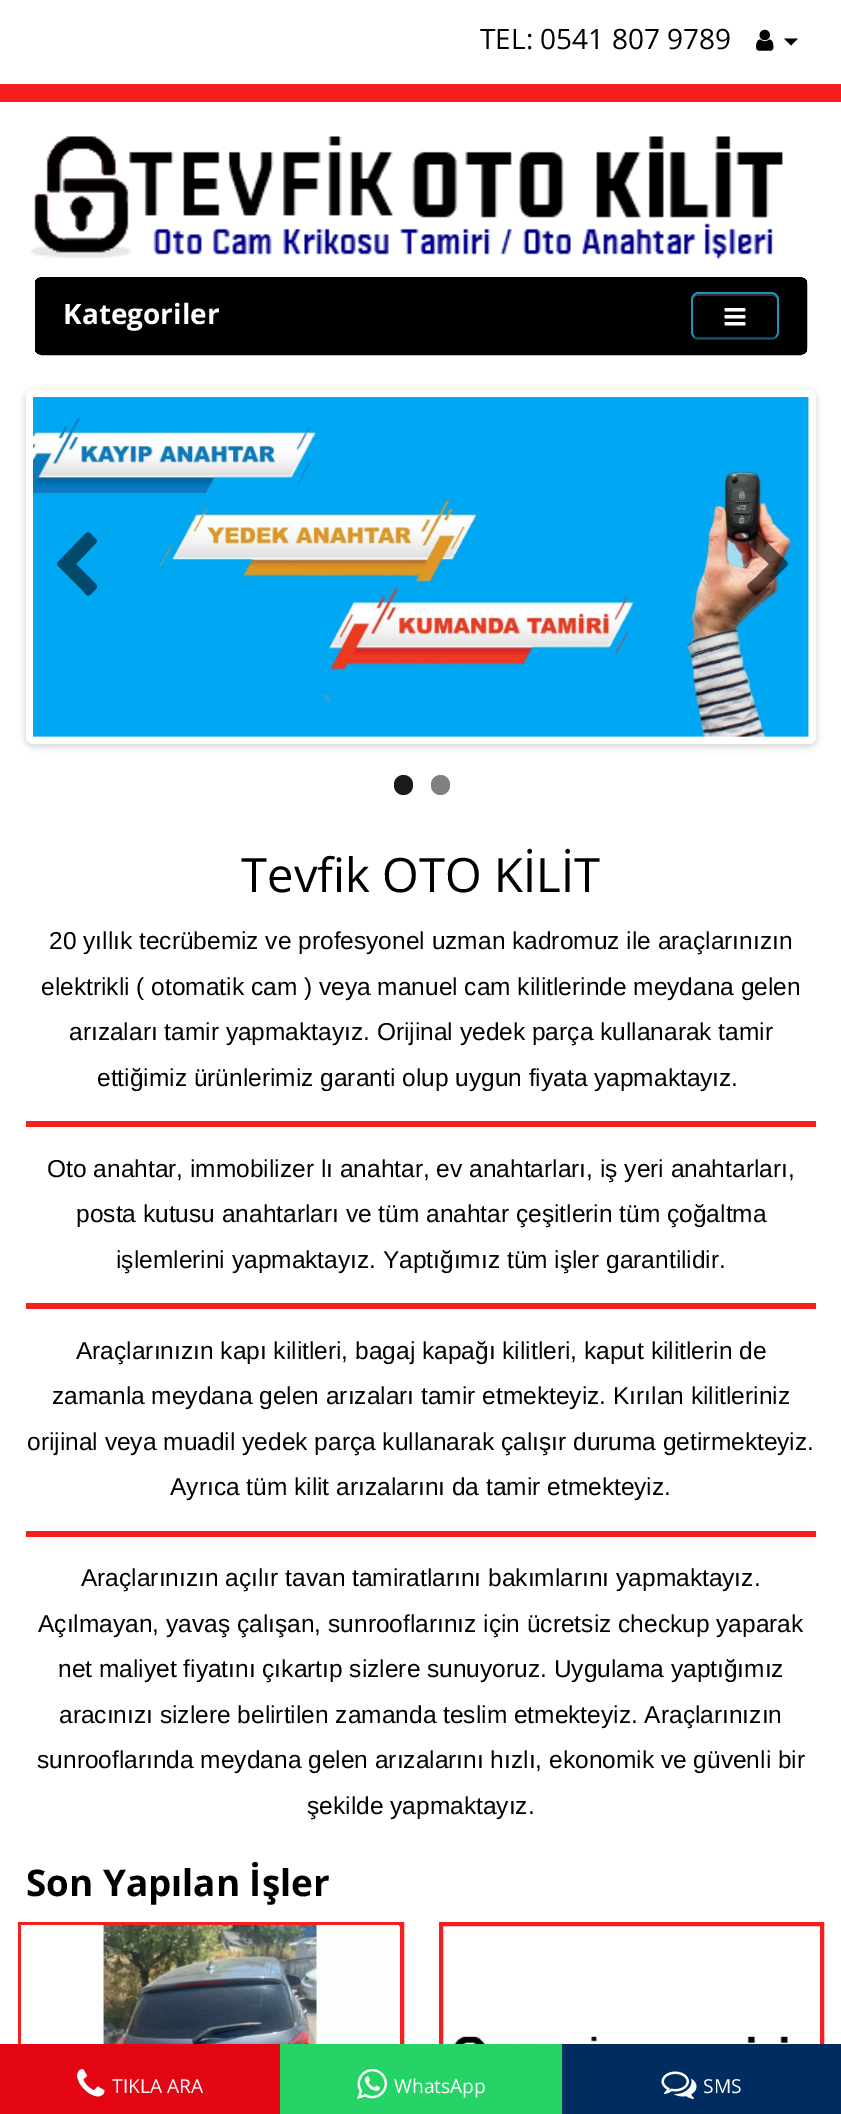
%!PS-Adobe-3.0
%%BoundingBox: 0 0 841 2114
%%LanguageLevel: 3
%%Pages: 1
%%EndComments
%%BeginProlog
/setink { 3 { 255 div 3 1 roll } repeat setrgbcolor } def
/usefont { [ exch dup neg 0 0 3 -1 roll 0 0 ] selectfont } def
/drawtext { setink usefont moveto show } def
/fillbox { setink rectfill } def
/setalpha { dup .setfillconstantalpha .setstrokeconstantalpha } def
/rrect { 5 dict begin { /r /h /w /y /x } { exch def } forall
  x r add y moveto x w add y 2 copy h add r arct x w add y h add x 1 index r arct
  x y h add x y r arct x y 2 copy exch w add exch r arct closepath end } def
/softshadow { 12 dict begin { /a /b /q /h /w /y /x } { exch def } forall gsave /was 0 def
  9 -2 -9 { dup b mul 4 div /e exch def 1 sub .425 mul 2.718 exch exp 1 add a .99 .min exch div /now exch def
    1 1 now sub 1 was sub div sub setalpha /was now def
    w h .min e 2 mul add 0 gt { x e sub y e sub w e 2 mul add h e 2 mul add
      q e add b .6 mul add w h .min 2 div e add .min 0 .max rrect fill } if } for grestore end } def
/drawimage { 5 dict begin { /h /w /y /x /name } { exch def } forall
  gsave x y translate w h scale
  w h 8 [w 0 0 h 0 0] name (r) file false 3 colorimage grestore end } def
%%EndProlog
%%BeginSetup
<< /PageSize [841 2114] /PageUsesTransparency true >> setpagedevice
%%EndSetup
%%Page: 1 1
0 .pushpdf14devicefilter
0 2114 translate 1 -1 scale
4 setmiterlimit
0 0 841 2114 255 255 255 fillbox
0 84 841 18 246 31 31 fillbox
(TEL: 0541 807 9789) 480 49 /OpenSans-Regular 28 0 0 0 drawtext
(assets/img1.rgb) 756 29 18 22 drawimage
784 38.5 moveto 798 38.5 lineto 791 45.5 lineto closepath fill
(assets/img2.rgb) 30 136 753 123 drawimage
gsave
35 277 772 78 7 rrect clip newpath
35 278 772 76 0 0 0 fillbox
grestore
2 setlinewidth
36 278 770 76 6 rrect stroke
(Kategoriler) 63 324 /OpenSans-Bold 28 255 255 255 drawtext
51 51 51 setink
698 296 moveto 772 296 lineto 775 296 777 298 777 301 curveto 777 291 768 294 760 294 curveto 710 294 lineto 702 294 693 291 693 301 curveto 693 298 695 296 698 296 curveto closepath fill
20 94 122 setink
1.8 setlinewidth
776 337 moveto 775 338 773.5 338.5 772 338.5 curveto 698 338.5 lineto 696.5 338.5 695 338 694 337 curveto stroke
31 144 187 setink
694 337 moveto 693 335.5 692 334 692 332.5 curveto 692 299 lineto 692 297.5 693 296 694 295 curveto 695 294 696.5 293 698 293 curveto 772 293 lineto 773.5 293 775 294 776 295 curveto 777 296 778 297.5 778 299 curveto 778 332.5 lineto 778 334 777 335.5 776 337 curveto stroke
(assets/img3.rgb) 724 308 22 18 drawimage
0 0 0 setink
26 392 790 354 7 3.5 0.2 softshadow
255 255 255 setink
29.5 393.5 783 347 3.5 rrect gsave fill grestore
7 setlinewidth
stroke
(assets/img4.rgb) 33 397 776 340 drawimage
0 74 107 setink
96 543 moveto 76 564 lineto 93 581 lineto 99 587 98 587 92 593 curveto 87 598 87 595 82 590 curveto 57 565 lineto 57 563 lineto 86 533 lineto 89 531 91 534 92 535 curveto 97 540 lineto 97 541 97 542 96 543 curveto closepath fill
0.56 setalpha
0 0 0 setink
787 566 moveto 758 595 lineto 755 597 752 592 750 590 curveto 744 585 749 584 755 578 curveto 769 564 lineto 766 561 747 544 747 542 curveto 747 539 750 538 751 536 curveto 757 530 756 532 763 538 curveto 782 557 lineto 783 558 788 562 788 564 curveto closepath fill
1 setalpha
26 26 26 setink
394 775 19 20 9.5 rrect fill
128 128 128 setink
431 775 19 20 9.5 rrect fill
(Tevfik OTO KİLİT) 241 892 /OpenSans-Regular 47.25 0 0 0 drawtext
(20 yıllık tecrübemiz ve profesyonel uzman kadromuz ile araçlarınızın) 49 949 /LiberationSans-Regular 24.5 0 0 0 drawtext
(elektrikli \( otomatik cam \) veya manuel cam kilitlerinde meydana gelen) 41 995 /LiberationSans-Regular 24.5 0 0 0 drawtext
(arızaları tamir yapmaktayız. Orijinal yedek parça kullanarak tamir) 69 1040 /LiberationSans-Regular 24.5 0 0 0 drawtext
(ettiğimiz ürünlerimiz garanti olup uygun fiyata yapmaktayız.) 97 1086 /LiberationSans-Regular 24.5 0 0 0 drawtext
26 1121 790 6 246 32 32 fillbox
(Oto anahtar, immobilizer lı anahtar, ev anahtarları, iş yeri anahtarları,) 47 1177 /LiberationSans-Regular 24.5 0 0 0 drawtext
(posta kutusu anahtarları ve tüm anahtar çeşitlerin tüm çoğaltma) 76 1222 /LiberationSans-Regular 24.5 0 0 0 drawtext
(işlemlerini yapmaktayız. Yaptığımız tüm işler garantilidir.) 116 1268 /LiberationSans-Regular 24.5 0 0 0 drawtext
26 1303 790 6 246 32 32 fillbox
(Araçlarınızın kapı kilitleri, bagaj kapağı kilitleri, kaput kilitlerin de) 76 1359 /LiberationSans-Regular 24.5 0 0 0 drawtext
(zamanla meydana gelen arızaları tamir etmekteyiz. Kırılan kilitleriniz) 52 1404 /LiberationSans-Regular 24.5 0 0 0 drawtext
(orijinal veya muadil yedek parça kullanarak çalışır duruma getirmekteyiz.) 27 1450 /LiberationSans-Regular 24.5 0 0 0 drawtext
(Ayrıca tüm kilit arızalarını da tamir etmekteyiz.) 170 1495 /LiberationSans-Regular 24.5 0 0 0 drawtext
26 1531 790 6 246 32 32 fillbox
(Araçlarınızın açılır tavan tamiratlarını bakımlarını yapmaktayız.) 81 1586 /LiberationSans-Regular 24.5 0 0 0 drawtext
(Açılmayan, yavaş çalışan, sunrooflarınız için ücretsiz checkup yaparak) 38 1632 /LiberationSans-Regular 24.5 0 0 0 drawtext
(net maliyet fiyatını çıkartıp sizlere sunuyoruz. Uygulama yaptığımız) 58 1677 /LiberationSans-Regular 24.5 0 0 0 drawtext
(aracınızı sizlere belirtilen zamanda teslim etmekteyiz. Araçlarınızın) 59 1723 /LiberationSans-Regular 24.5 0 0 0 drawtext
(sunrooflarında meydana gelen arızalarını hızlı, ekonomik ve güvenli bir) 37 1768 /LiberationSans-Regular 24.5 0 0 0 drawtext
(şekilde yapmaktayız.) 307 1814 /LiberationSans-Regular 24.5 0 0 0 drawtext
(Son Yapılan İşler) 26 1896 /OpenSans-Bold 36.75 0 0 0 drawtext
246 31 31 setink
4 setlinewidth
20 1924 382 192 rectstroke
(assets/img5.rgb) 21 1925 378 119 drawimage
441 1924 381 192 rectstroke
(assets/img6.rgb) 453 2036 360 8 drawimage
0 2044 280 70 227 5 19 fillbox
(assets/img7.rgb) 77 2069 28 28 drawimage
(TIKLA ARA) 112 2093 /OpenSans-Regular 19.25 255 255 255 drawtext
280 2044 282 70 37 211 102 fillbox
(assets/img8.rgb) 357 2068 30 31 drawimage
(WhatsApp) 394 2093 /OpenSans-Regular 19.25 255 255 255 drawtext
562 2044 279 70 0 44 95 fillbox
(assets/img9.rgb) 661 2071 36 28 drawimage
(SMS) 703 2093 /OpenSans-Regular 19.25 255 255 255 drawtext
.poppdf14devicefilter showpage
%%EOF
